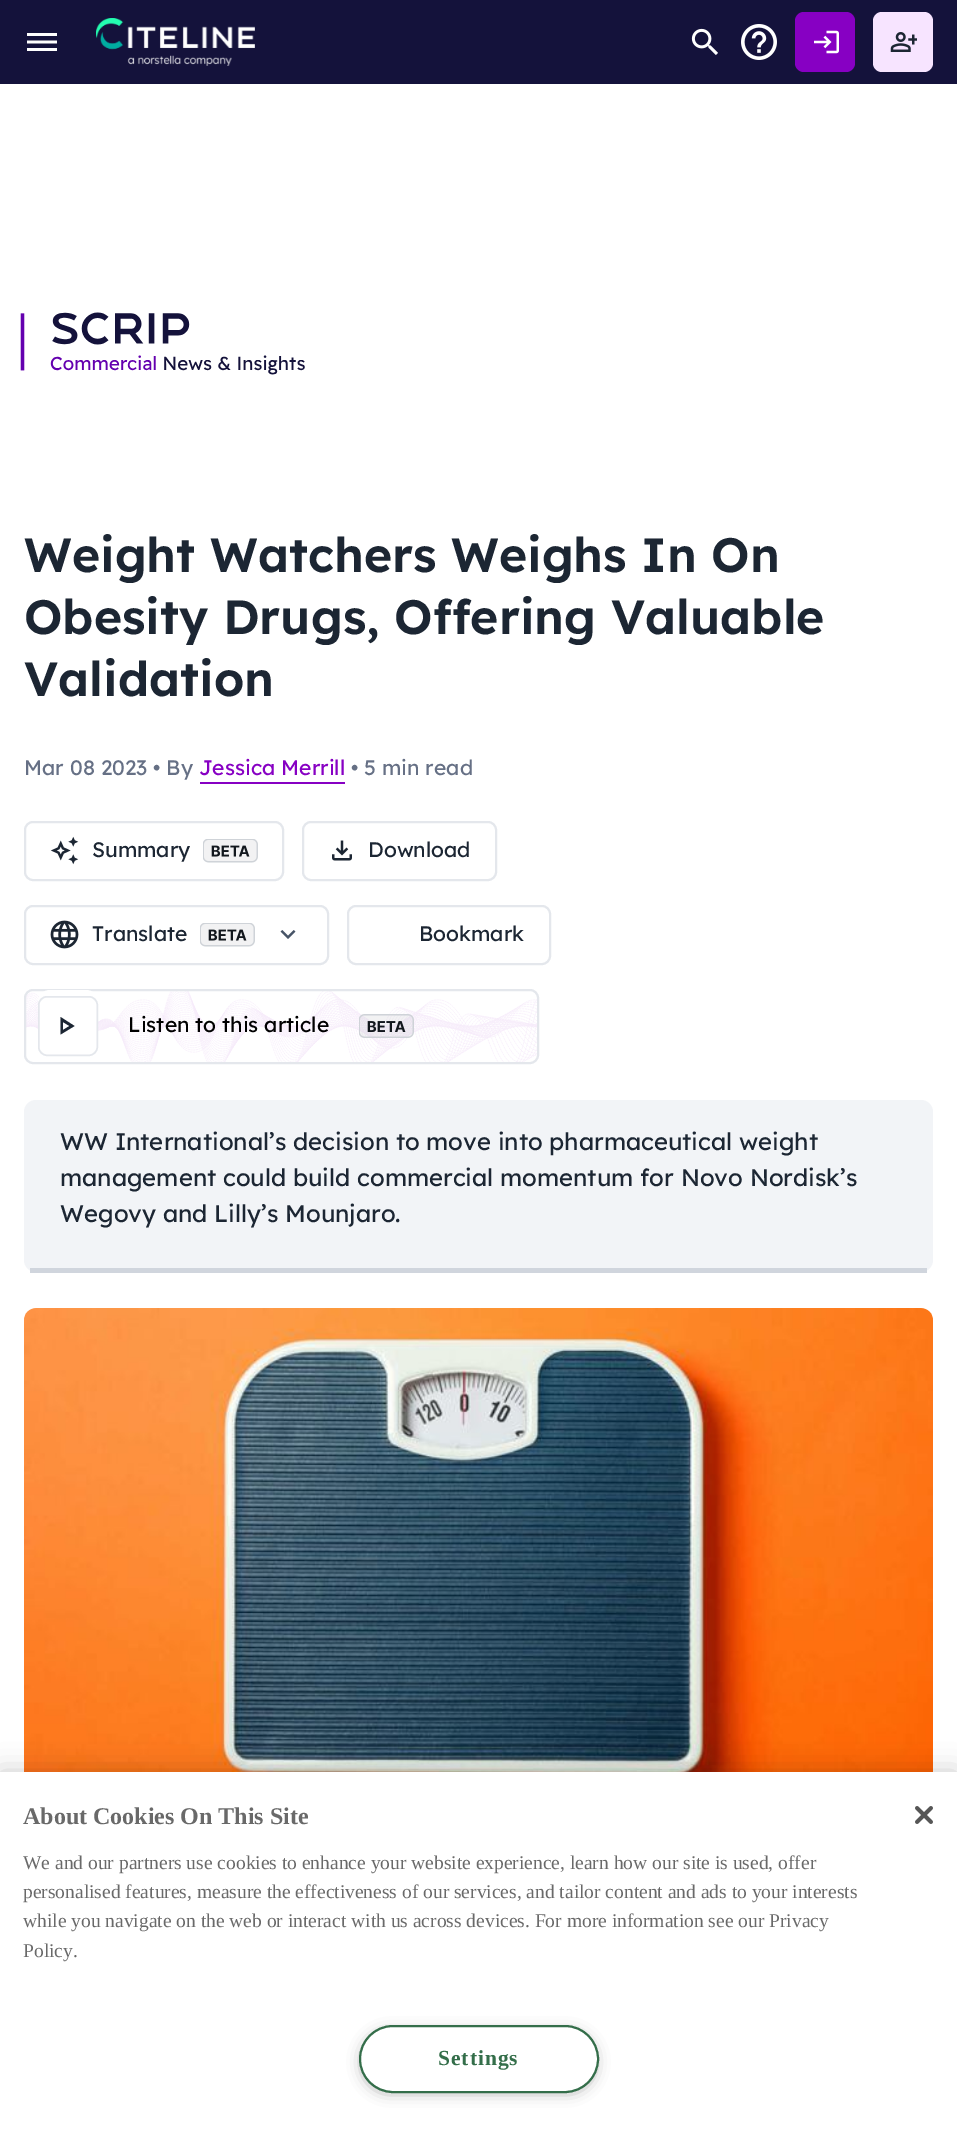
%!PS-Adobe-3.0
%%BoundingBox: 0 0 957 2137
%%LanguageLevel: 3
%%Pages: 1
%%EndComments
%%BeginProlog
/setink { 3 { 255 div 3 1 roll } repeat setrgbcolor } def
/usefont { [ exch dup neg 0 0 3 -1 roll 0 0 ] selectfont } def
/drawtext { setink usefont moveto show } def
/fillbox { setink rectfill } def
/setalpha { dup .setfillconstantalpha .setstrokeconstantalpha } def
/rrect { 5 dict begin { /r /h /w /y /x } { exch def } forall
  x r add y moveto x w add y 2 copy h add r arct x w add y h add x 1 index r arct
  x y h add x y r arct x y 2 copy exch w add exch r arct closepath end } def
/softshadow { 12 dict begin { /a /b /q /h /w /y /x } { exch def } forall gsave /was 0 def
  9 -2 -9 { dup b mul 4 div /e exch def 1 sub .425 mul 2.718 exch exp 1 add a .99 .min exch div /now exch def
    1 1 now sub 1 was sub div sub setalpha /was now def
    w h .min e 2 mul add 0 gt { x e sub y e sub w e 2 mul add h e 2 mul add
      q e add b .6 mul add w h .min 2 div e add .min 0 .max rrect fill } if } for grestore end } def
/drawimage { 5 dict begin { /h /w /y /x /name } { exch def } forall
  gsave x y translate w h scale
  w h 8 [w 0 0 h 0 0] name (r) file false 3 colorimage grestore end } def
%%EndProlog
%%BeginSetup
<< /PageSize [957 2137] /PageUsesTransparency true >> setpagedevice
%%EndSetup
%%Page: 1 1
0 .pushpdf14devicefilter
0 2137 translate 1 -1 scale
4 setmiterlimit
0 0 957 2137 255 255 255 fillbox
0 0 957 84 20 18 59 fillbox
(assets/img1.rgb) 27 33 30 18 drawimage
(assets/img2.rgb) 96 18 159 48 drawimage
(assets/img3.rgb) 691 28 27 27 drawimage
(assets/img4.rgb) 741 24 36 36 drawimage
135 0 195 setink
795 12 60 60 9 rrect fill
(assets/img5.rgb) 814 30 25 24 drawimage
247 228 255 setink
873 12 60 60 9 rrect fill
(assets/img6.rgb) 890 32 27 20 drawimage
(assets/img7.rgb) 20 312 285 63 drawimage
(Weight Watchers Weighs In On) 24 572 /Lexend-SemiBold 48 28 38 51 drawtext
(Obesity Drugs, Offering Valuable) 24 634 /Lexend-SemiBold 48 28 38 51 drawtext
(Validation) 24 696 /Lexend-SemiBold 48 28 38 51 drawtext
(Mar 08 2023 • By) 24 775 /Lexend-Regular 21 102 112 133 drawtext
(Jessica Merrill) 199 775 /Lexend-Regular 21 135 0 195 drawtext
200 782 145 2 135 0 195 fillbox
(• 5 min read) 351 775 /Lexend-Regular 21 102 112 133 drawtext
228 231 236 setink
2 setlinewidth
25 822 258 58 8 rrect stroke
(assets/img8.rgb) 50 836 29 29 drawimage
(Summary) 92 857 /Lexend-Regular 21 28 38 51 drawtext
(assets/img9.rgb) 203 839 55 24 drawimage
228 231 236 setink
303 822 193 58 8 rrect stroke
(assets/img10.rgb) 332 840 20 21 drawimage
(Download) 368 857 /Lexend-Regular 21 28 38 51 drawtext
228 231 236 setink
25 906 303 58 8 rrect stroke
(assets/img11.rgb) 50 920 29 29 drawimage
(Translate) 92 941 /Lexend-Regular 21 28 38 51 drawtext
(assets/img9.rgb) 200 923 55 24 drawimage
(assets/img12.rgb) 280 930 16 9 drawimage
228 231 236 setink
348 906 202 58 8 rrect stroke
(Bookmark) 419 941 /Lexend-Regular 21 28 38 51 drawtext
(assets/img13.rgb) 26 991 511 71 drawimage
228 231 236 setink
25 990 513 73 8 rrect stroke
255 255 255 setink
38 990 60 72 12 rrect fill
228 231 236 setink
1.5 setlinewidth
38.75 996.75 58.5 58.5 8.25 rrect stroke
28 38 51 setink
63 1022 moveto 69.5 1026 lineto 63 1030 lineto closepath 60.5 1017 moveto 60.5 1034.5 lineto 74.5 1026 lineto closepath fill
(Listen to this article) 128 1032 /Lexend-Regular 21 0 0 0 drawtext
(assets/img14.rgb) 359 1014 55 24 drawimage
242 244 247 setink
24 1100 909 172 12 rrect fill
30 1268 897 5 208 213 221 fillbox
(WW International’s decision to move into pharmaceutical weight) 60 1150 /Lexend-Regular 24 28 38 51 drawtext
(management could build commercial momentum for Novo Nordisk’s) 60 1186 /Lexend-Regular 24 28 38 51 drawtext
(Wegovy and Lilly’s Mounjaro.) 60 1222 /Lexend-Regular 24 28 38 51 drawtext
(assets/img15.rgb) 24 1308 909 464 drawimage
0 0 0 setink
0 1772 957 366 0 13.5 0.2 softshadow
0 1772 957 365 255 255 255 fillbox
(About Cookies On This Site) 23 1824 /LiberationSerif-Bold 24 105 105 105 drawtext
(We and our partners use cookies to enhance your website experience, learn how our site is used, offer) 23 1869 /LiberationSerif-Regular 19.5 105 105 105 drawtext
(personalised features, measure the effectiveness of our services, and tailor content and ads to your interests) 23 1898 /LiberationSerif-Regular 19.5 105 105 105 drawtext
(while you navigate on the web or interact with us across devices. For more information see our Privacy) 23 1927 /LiberationSerif-Regular 19.5 105 105 105 drawtext
(Policy.) 23 1957 /LiberationSerif-Regular 19.5 105 105 105 drawtext
153 153 153 setink
363 2033 231 58 29 7.5 1 softshadow
255 255 255 setink
360 2026 238 66 33 rrect gsave fill grestore
52 110 74 setink
2 setlinewidth
stroke
/LiberationSerif-Bold 21.5 usefont
438 2065 moveto 1 0 (Settings) ashow
(assets/img16.rgb) 915 1806 18 18 drawimage
.poppdf14devicefilter showpage
%%EOF
